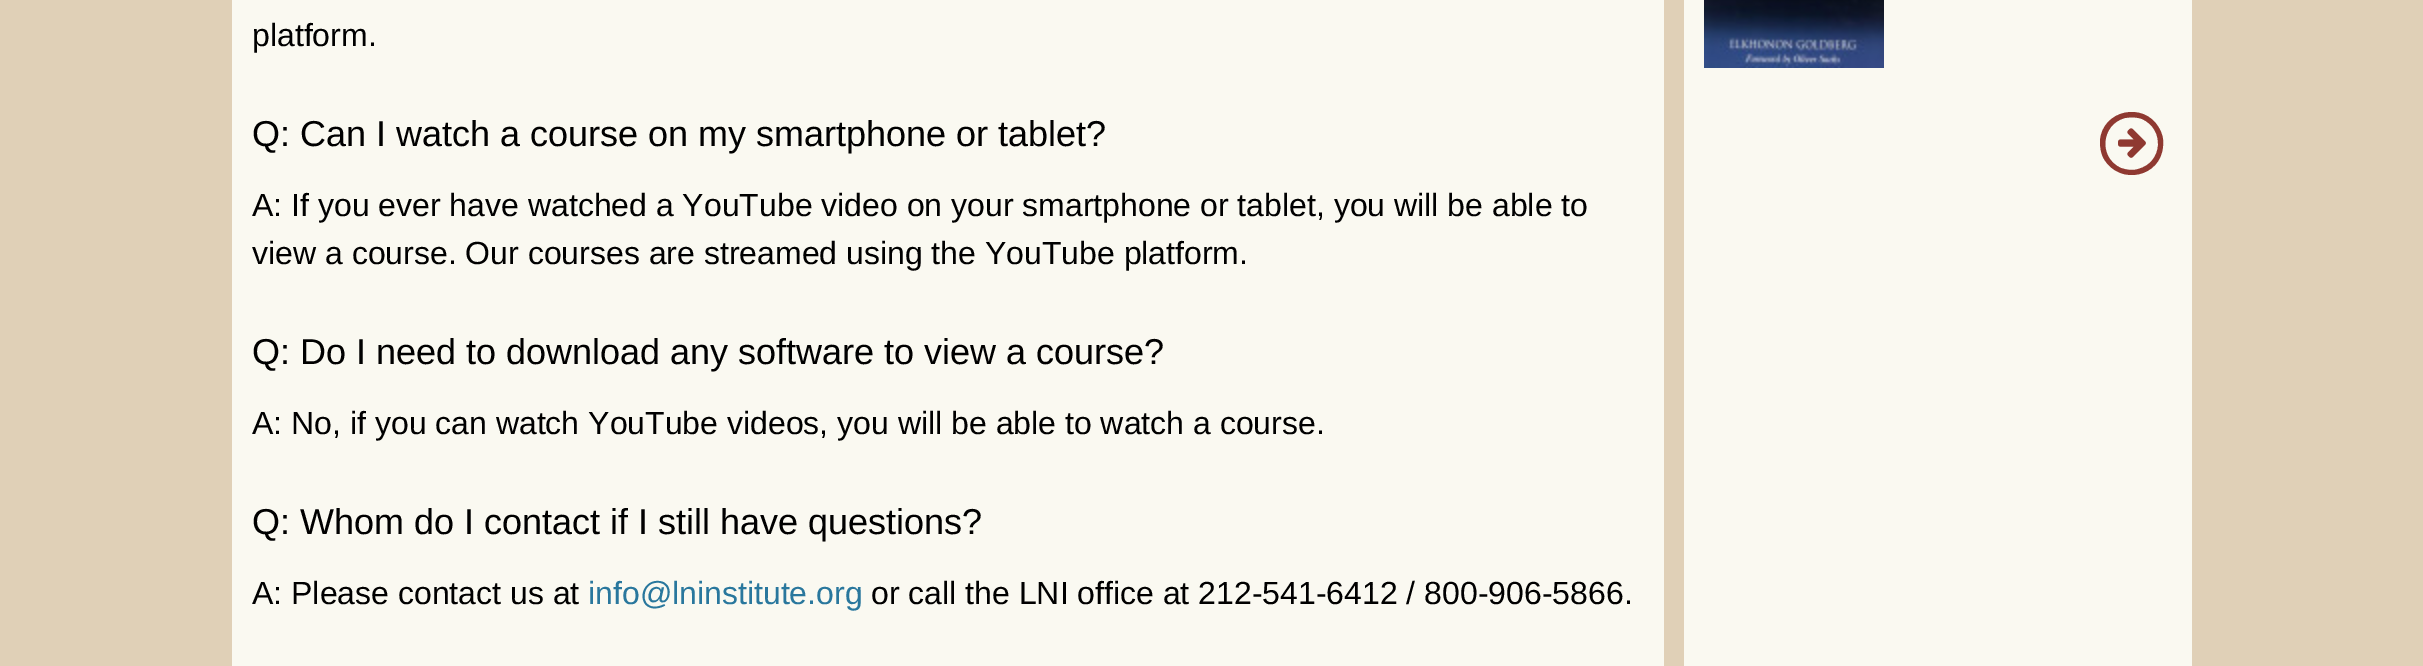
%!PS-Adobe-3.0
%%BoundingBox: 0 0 2423 666
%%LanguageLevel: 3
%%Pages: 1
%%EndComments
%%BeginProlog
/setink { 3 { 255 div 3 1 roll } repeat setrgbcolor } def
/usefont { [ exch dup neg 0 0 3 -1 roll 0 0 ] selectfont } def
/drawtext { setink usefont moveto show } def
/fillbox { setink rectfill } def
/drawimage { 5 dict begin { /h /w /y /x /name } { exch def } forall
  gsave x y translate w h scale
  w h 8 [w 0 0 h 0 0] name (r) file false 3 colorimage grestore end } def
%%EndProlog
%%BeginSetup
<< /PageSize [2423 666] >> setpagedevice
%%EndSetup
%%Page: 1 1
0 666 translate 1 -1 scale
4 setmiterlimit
0 0 2423 666 224 208 183 fillbox
232 0 1432 666 250 249 241 fillbox
(platform.) 252 46 /LiberationSans-Regular 32 0 0 0 drawtext
(Q: Can I watch a course on my smartphone or tablet?) 252 146 /LiberationSans-Regular 36 0 0 0 drawtext
(A: If you ever have watched a YouTube video on your smartphone or tablet, you will be able to) 252 216 /LiberationSans-Regular 32 0 0 0 drawtext
(view a course. Our courses are streamed using the YouTube platform.) 252 264 /LiberationSans-Regular 32 0 0 0 drawtext
(Q: Do I need to download any software to view a course?) 252 364 /LiberationSans-Regular 36 0 0 0 drawtext
(A: No, if you can watch YouTube videos, you will be able to watch a course.) 252 434 /LiberationSans-Regular 32 0 0 0 drawtext
(Q: Whom do I contact if I still have questions?) 252 534 /LiberationSans-Regular 36 0 0 0 drawtext
(A: Please contact us at) 252 604 /LiberationSans-Regular 32 0 0 0 drawtext
(info@lninstitute.org) 588 604 /LiberationSans-Regular 32 41 119 157 drawtext
(or call the LNI office at 212-541-6412 / 800-906-5866.) 871 604 /LiberationSans-Regular 32 0 0 0 drawtext
1684 0 508 666 250 249 241 fillbox
(assets/img1.rgb) 1704 0 180 68 drawimage
143 57 49 setink
2142 119 moveto 2137 117 2131 117 2125 118 curveto 2101 124 2098 158 2121 168 curveto 2127 170 2133 171 2138 169 curveto 2163 163 2165 129 2142 119 curveto closepath 2159 128 moveto 2162 133 2164 139 2163 146 curveto 2161 177 2120 186 2104 159 curveto 2101 154 2100 148 2100 141 curveto 2102 110 2144 101 2159 128 curveto closepath fill
(assets/img2.rgb) 2118 128 28 30 drawimage
showpage
%%EOF
